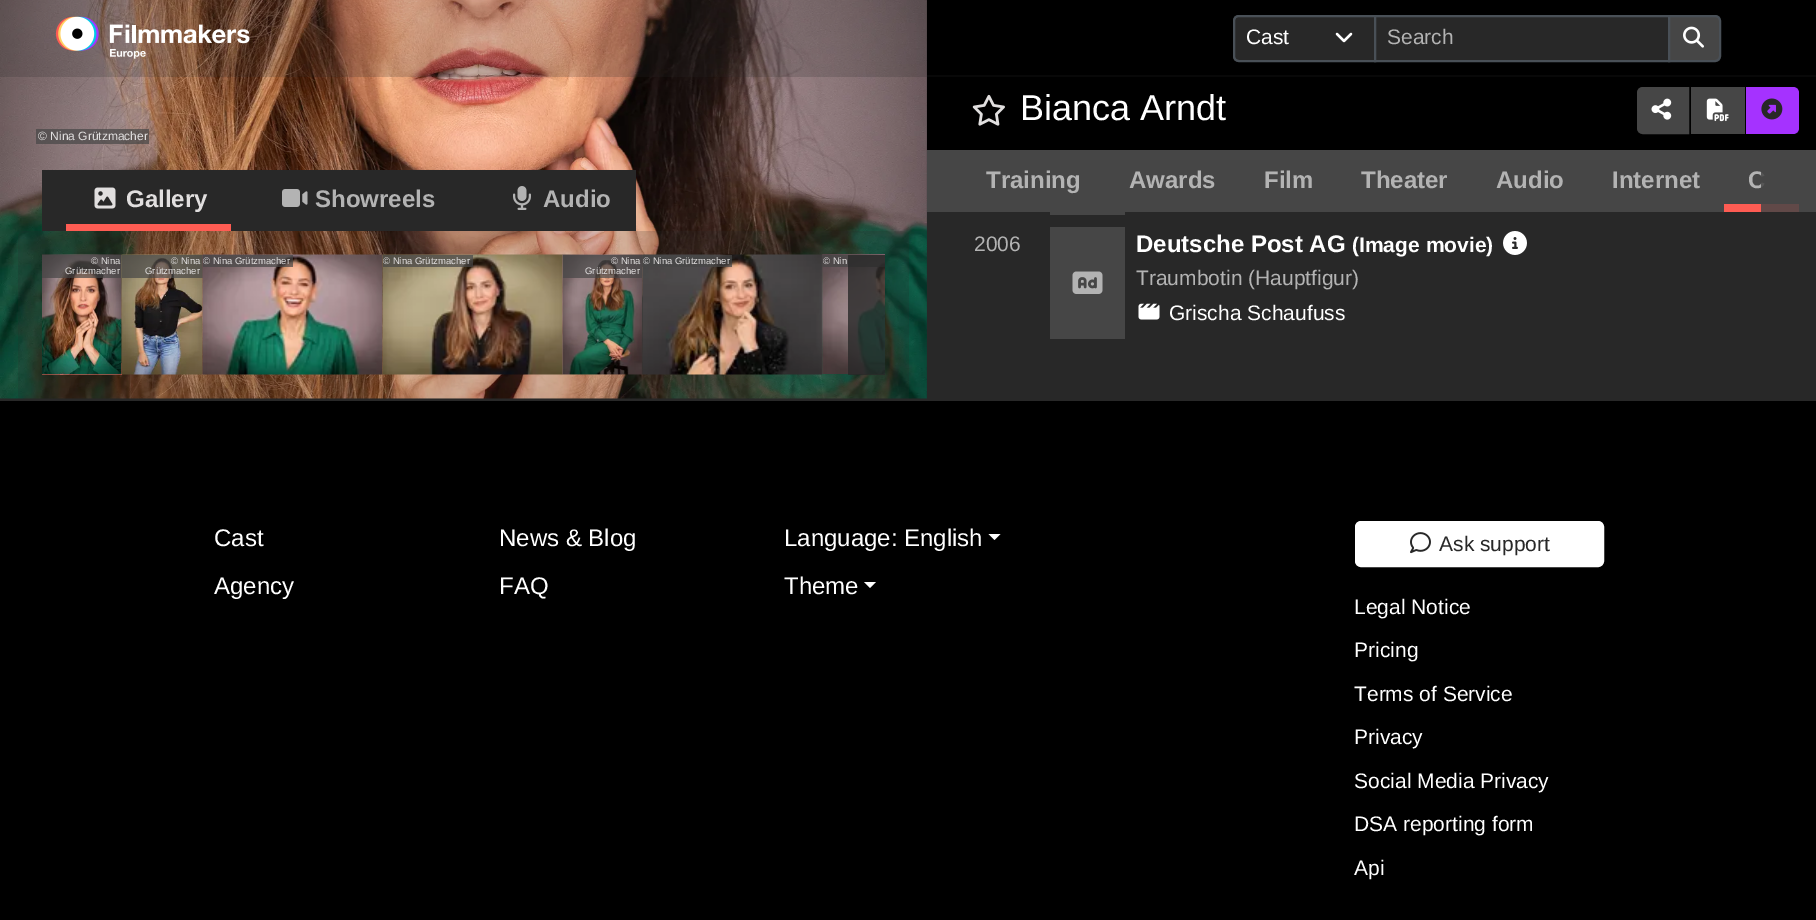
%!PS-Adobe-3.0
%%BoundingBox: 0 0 1816 920
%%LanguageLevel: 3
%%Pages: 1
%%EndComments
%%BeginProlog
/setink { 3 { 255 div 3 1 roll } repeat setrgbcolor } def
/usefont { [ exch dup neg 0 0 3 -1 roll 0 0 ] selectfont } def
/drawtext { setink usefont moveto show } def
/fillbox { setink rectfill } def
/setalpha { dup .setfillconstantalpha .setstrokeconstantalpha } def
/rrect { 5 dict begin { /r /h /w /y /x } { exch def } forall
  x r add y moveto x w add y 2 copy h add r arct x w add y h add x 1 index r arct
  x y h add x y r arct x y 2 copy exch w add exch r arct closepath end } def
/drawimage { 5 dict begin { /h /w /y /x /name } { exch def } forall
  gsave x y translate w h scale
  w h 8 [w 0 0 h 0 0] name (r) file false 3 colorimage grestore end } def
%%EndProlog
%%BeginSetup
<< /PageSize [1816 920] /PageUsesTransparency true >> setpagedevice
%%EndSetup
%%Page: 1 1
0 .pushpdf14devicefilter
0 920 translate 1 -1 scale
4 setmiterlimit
0 0 1816 920 40 40 40 fillbox
(assets/img3.rgb) 0 0 927 399 drawimage
927 75 889 75 0 0 0 fillbox
0.2 setalpha
0 0 1816 77 40 40 40 fillbox
1 setalpha
(assets/img1.rgb) 55 16 195 43 drawimage
927 0 889 75 0 0 0 fillbox
40 40 40 setink
1239 15 moveto 1376 15 lineto 1376 62 lineto 1239 62 lineto 1235.5 62 1233 59.5 1233 56 curveto 1233 21 lineto 1233 17.5 1235.5 15 1239 15 curveto closepath fill
255 255 255 setink
2.2 setlinewidth
1 setlinecap
1 setlinejoin
1337 34 moveto 1344 41 lineto 1351 34 lineto stroke
73 80 87 setink
2 setlinewidth
0 setlinecap
0 setlinejoin
1239 16 moveto 1375 16 lineto 1375 61 lineto 1239 61 lineto 1236 61 1234 59 1234 56 curveto 1234 21 lineto 1234 18 1236 16 1239 16 curveto closepath stroke
gsave
1247 23 73 31 rectclip
(Cast) 1246 44 /LiberationSans-Regular 21 255 255 255 drawtext
grestore
40 40 40 setink
1375 16 moveto 1669 16 lineto 1669 61 lineto 1375 61 lineto closepath gsave fill grestore
73 80 87 setink
stroke
(Search) 1387 44 /LiberationSans-Regular 21 179 179 179 drawtext
70 70 70 setink
1669 16 moveto 1715 16 lineto 1718 16 1720 18 1720 21 curveto 1720 56 lineto 1720 59 1718 61 1715 61 curveto 1669 61 lineto closepath gsave fill grestore
73 80 87 setink
stroke
(assets/img2.rgb) 1683 26 21 22 drawimage
0.7 setalpha
36 129 113 15 70 70 70 fillbox
1 setalpha
(© Nina Grützmacher) 38 140 /LiberationSans-Regular 12 225 223 223 drawtext
(assets/img4.rgb) 972 94 33 32 drawimage
(Bianca Arndt) 1020 120 /LiberationSans-Regular 36 255 255 255 drawtext
70 70 70 setink
1643 88 moveto 1688 88 lineto 1688 133 lineto 1643 133 lineto 1640 133 1638 131 1638 128 curveto 1638 93 lineto 1638 90 1640 88 1643 88 curveto closepath gsave fill grestore
stroke
(assets/img5.rgb) 1651 98 21 22 drawimage
1691 87 54 47 70 70 70 fillbox
(assets/img6.rgb) 1706 98 23 24 drawimage
165 50 255 setink
1746 87 moveto 1793 87 lineto 1796.5 87 1799 89.5 1799 93 curveto 1799 128 lineto 1799 131.5 1796.5 134 1793 134 curveto 1746 134 lineto closepath fill
(assets/img7.rgb) 1761 98 22 22 drawimage
927 150 889 62 70 70 70 fillbox
(Training) 986 188 /LiberationSans-Bold 24 179 179 179 drawtext
(Awards) 1129 188 /LiberationSans-Bold 24 179 179 179 drawtext
(Film) 1264 188 /LiberationSans-Bold 24 179 179 179 drawtext
(Theater) 1361 188 /LiberationSans-Bold 24 179 179 179 drawtext
(Audio) 1496 188 /LiberationSans-Bold 24 179 179 179 drawtext
(Internet) 1612 188 /LiberationSans-Bold 24 179 179 179 drawtext
1724 204 75 8 254 92 83 fillbox
(C) 1748 188 /LiberationSans-Bold 24 179 179 179 drawtext
0.85 setalpha
1761 172 38 40 70 70 70 fillbox
1 setalpha
1050 212 75 3 70 70 70 fillbox
(2006) 974 251 /LiberationSans-Regular 21 179 179 179 drawtext
1050 227 75 112 70 70 70 fillbox
(assets/img8.rgb) 1072 271 31 23 drawimage
(Deutsche Post AG) 1136 252 /LiberationSans-Bold 24 255 255 255 drawtext
(\(Image movie\)) 1352 252 /LiberationSans-Bold 21 255 255 255 drawtext
(assets/img9.rgb) 1503 231 24 24 drawimage
(Traumbotin \(Hauptfigur\)) 1136 285 /LiberationSans-Regular 21 179 179 179 drawtext
(assets/img10.rgb) 1138 303 22 17 drawimage
(Grischa Schaufuss) 1169 320 /LiberationSans-Regular 21 255 255 255 drawtext
42 170 594 61 40 40 40 fillbox
66 224 165 7 254 92 83 fillbox
(assets/img11.rgb) 94 187 22 22 drawimage
(Gallery) 126 207 /LiberationSans-Bold 24 225 223 223 drawtext
(assets/img12.rgb) 282 189 26 18 drawimage
(Showreels) 315 207 /LiberationSans-Bold 24 179 179 179 drawtext
(assets/img13.rgb) 513 186 18 24 drawimage
(Audio) 543 207 /LiberationSans-Bold 24 179 179 179 drawtext
0.2 setalpha
40 40 40 setink
24 231 moveto 903 231 lineto 906.5 231 909 233.5 909 237 curveto 909 399 lineto 18 399 lineto 18 237 lineto 18 233.5 20.5 231 24 231 curveto closepath fill
1 setalpha
42 363 80 12 254 92 83 fillbox
(assets/img14.rgb) 42 254 80 121 drawimage
0.7 setalpha
42 255 80 23 70 70 70 fillbox
1 setalpha
(© Nina) 91 264 /LiberationSans-Regular 9.5 225 223 223 drawtext
(Grützmacher) 65 274 /LiberationSans-Regular 9.5 225 223 223 drawtext
(assets/img15.rgb) 121 254 82 121 drawimage
0.7 setalpha
122 255 81 23 70 70 70 fillbox
1 setalpha
(© Nina) 171 264 /LiberationSans-Regular 9.5 225 223 223 drawtext
(Grützmacher) 145 274 /LiberationSans-Regular 9.5 225 223 223 drawtext
(assets/img16.rgb) 202 254 181 121 drawimage
0.7 setalpha
203 255 90 12 70 70 70 fillbox
1 setalpha
(© Nina Grützmacher) 203 264 /LiberationSans-Regular 9.5 225 223 223 drawtext
(assets/img17.rgb) 382 254 181 121 drawimage
0.7 setalpha
383 255 90 12 70 70 70 fillbox
1 setalpha
(© Nina Grützmacher) 383 264 /LiberationSans-Regular 9.5 225 223 223 drawtext
(assets/img18.rgb) 562 254 80 121 drawimage
0.7 setalpha
563 255 79 23 70 70 70 fillbox
1 setalpha
(© Nina) 611 264 /LiberationSans-Regular 9.5 225 223 223 drawtext
(Grützmacher) 585 274 /LiberationSans-Regular 9.5 225 223 223 drawtext
(assets/img19.rgb) 641 254 181 121 drawimage
0.7 setalpha
642 255 90 12 70 70 70 fillbox
1 setalpha
(© Nina Grützmacher) 643 264 /LiberationSans-Regular 9.5 225 223 223 drawtext
(assets/img20.rgb) 821 254 64 120 drawimage
0.7 setalpha
822 255 63 12 70 70 70 fillbox
1 setalpha
(© Nin) 823 264 /LiberationSans-Regular 9.5 225 223 223 drawtext
0.8 setalpha
848 255 37 120 40 40 40 fillbox
1 setalpha
0 401 1816 519 0 0 0 fillbox
(Cast) 214 546 /LiberationSans-Regular 24 255 255 255 drawtext
(Agency) 214 594 /LiberationSans-Regular 24 255 255 255 drawtext
(News & Blog) 499 546 /LiberationSans-Regular 24 255 255 255 drawtext
(FAQ) 499 594 /LiberationSans-Regular 24 255 255 255 drawtext
(Language: English) 784 546 /LiberationSans-Regular 24 255 255 255 drawtext
988.5 534 moveto 1000.5 534 lineto 994.5 540 lineto closepath fill
(Theme) 784 594 /LiberationSans-Regular 24 255 255 255 drawtext
864 582 moveto 876 582 lineto 870 588 lineto closepath fill
1356 522 247 44 5 rrect gsave fill grestore
stroke
(assets/img21.rgb) 1410 532 21 22 drawimage
(Ask support) 1439 551 /LiberationSans-Regular 21 40 40 40 drawtext
(Legal Notice) 1354 614 /LiberationSans-Regular 21 255 255 255 drawtext
(Pricing) 1354 657 /LiberationSans-Regular 21 255 255 255 drawtext
(Terms of Service) 1354 701 /LiberationSans-Regular 21 255 255 255 drawtext
(Privacy) 1354 744 /LiberationSans-Regular 21 255 255 255 drawtext
(Social Media Privacy) 1354 788 /LiberationSans-Regular 21 255 255 255 drawtext
(DSA reporting form) 1354 831 /LiberationSans-Regular 21 255 255 255 drawtext
(Api) 1354 875 /LiberationSans-Regular 21 255 255 255 drawtext
.poppdf14devicefilter showpage
%%EOF
